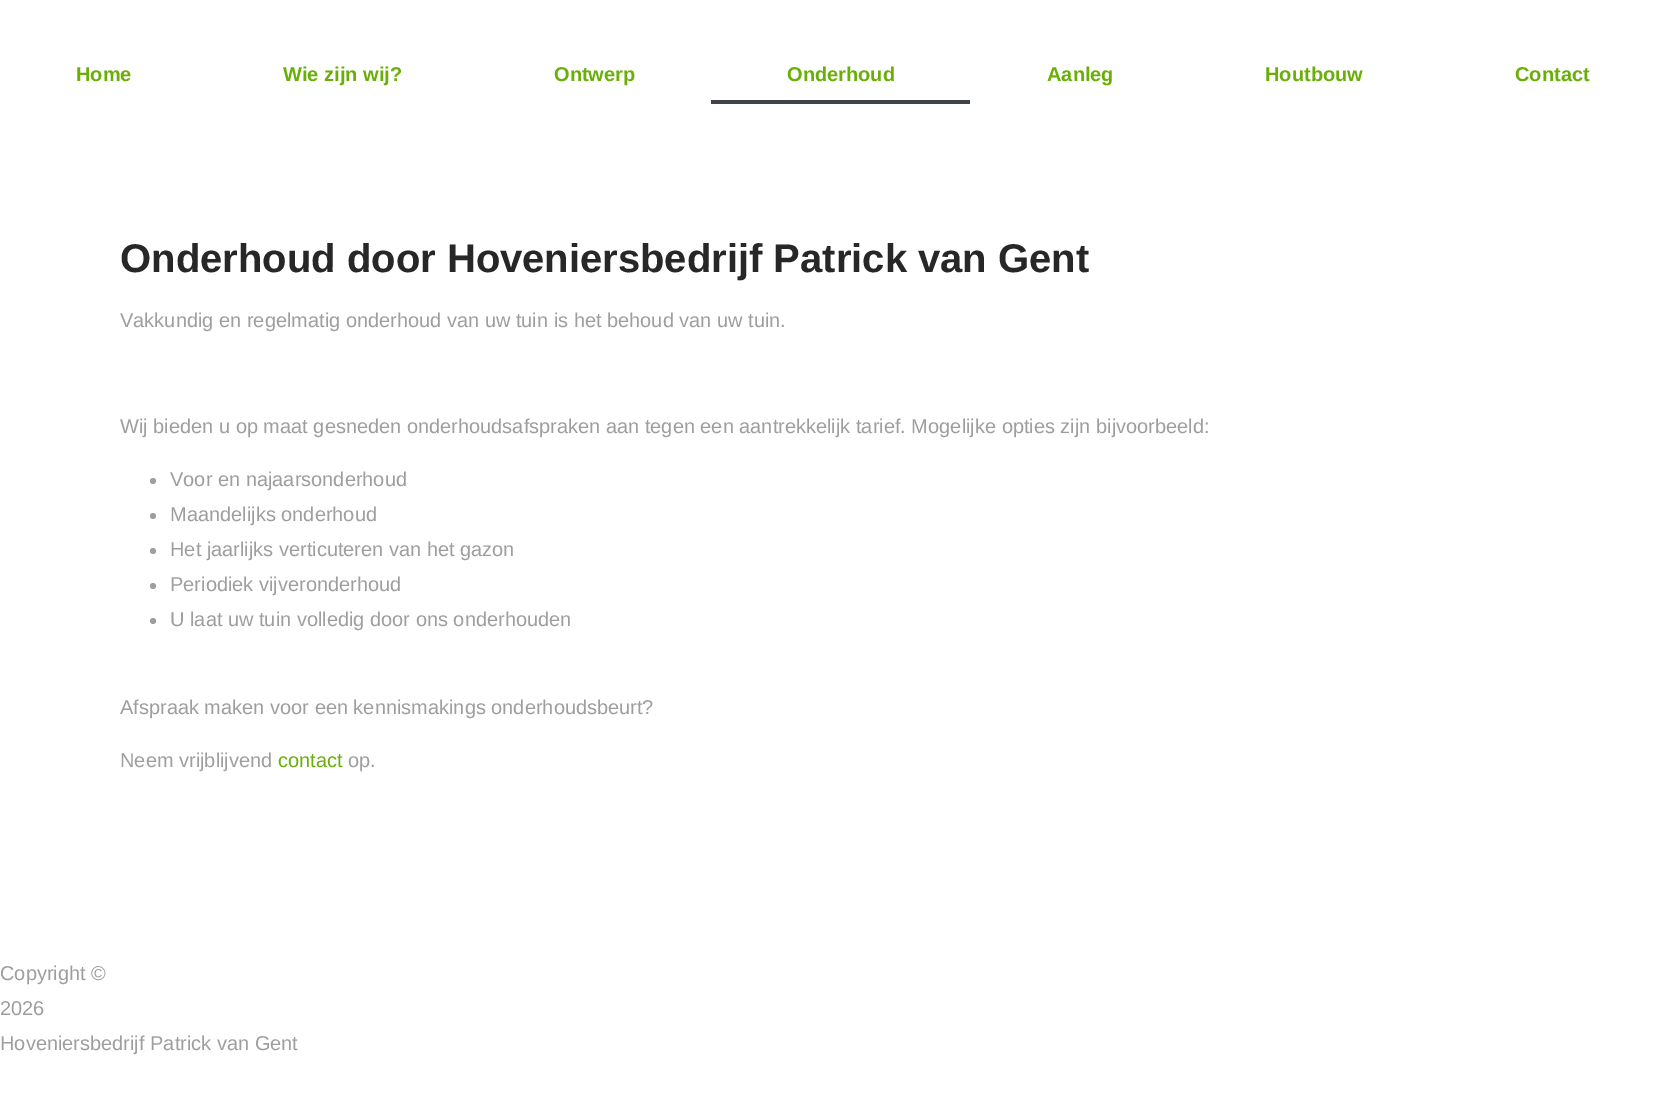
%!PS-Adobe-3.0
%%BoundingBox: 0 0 1664 1096
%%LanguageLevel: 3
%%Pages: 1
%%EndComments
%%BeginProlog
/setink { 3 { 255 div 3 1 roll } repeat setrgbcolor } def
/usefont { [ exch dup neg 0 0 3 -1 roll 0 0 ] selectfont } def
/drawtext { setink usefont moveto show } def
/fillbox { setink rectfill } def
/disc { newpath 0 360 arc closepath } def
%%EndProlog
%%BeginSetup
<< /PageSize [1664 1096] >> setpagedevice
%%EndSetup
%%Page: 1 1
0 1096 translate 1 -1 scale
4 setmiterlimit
0 0 1664 1096 255 255 255 fillbox
(Home) 76 81 /LiberationSans-Bold 20 106 175 8 drawtext
(Wie zijn wij?) 283 81 /LiberationSans-Bold 20 106 175 8 drawtext
(Ontwerp) 554 81 /LiberationSans-Bold 20 106 175 8 drawtext
(Onderhoud) 787 81 /LiberationSans-Bold 20 106 175 8 drawtext
711 100 259 4 63 68 75 fillbox
(Aanleg) 1047 81 /LiberationSans-Bold 20 106 175 8 drawtext
(Houtbouw) 1265 81 /LiberationSans-Bold 20 106 175 8 drawtext
(Contact) 1515 81 /LiberationSans-Bold 20 106 175 8 drawtext
(Onderhoud door Hoveniersbedrijf Patrick van Gent) 120 272 /LiberationSans-Bold 40 39 39 39 drawtext
(Vakkundig en regelmatig onderhoud van uw tuin is het behoud van uw tuin.) 120 327 /LiberationSans-Regular 20 158 158 158 drawtext
(Wij bieden u op maat gesneden onderhoudsafspraken aan tegen een aantrekkelijk tarief. Mogelijke opties zijn bijvoorbeeld:) 120 433 /LiberationSans-Regular 20 158 158 158 drawtext
153 481 3 disc fill
(Voor en najaarsonderhoud) 170 486 /LiberationSans-Regular 20 158 158 158 drawtext
153 516 3 disc fill
(Maandelijks onderhoud) 170 521 /LiberationSans-Regular 20 158 158 158 drawtext
153 551 3 disc fill
(Het jaarlijks verticuteren van het gazon) 170 556 /LiberationSans-Regular 20 158 158 158 drawtext
153 586 3 disc fill
(Periodiek vijveronderhoud) 170 591 /LiberationSans-Regular 20 158 158 158 drawtext
153 621 3 disc fill
(U laat uw tuin volledig door ons onderhouden) 170 626 /LiberationSans-Regular 20 158 158 158 drawtext
(Afspraak maken voor een kennismakings onderhoudsbeurt?) 120 714 /LiberationSans-Regular 20 158 158 158 drawtext
(Neem vrijblijvend) 120 767 /LiberationSans-Regular 20 158 158 158 drawtext
(contact) 278 767 /LiberationSans-Regular 20 106 175 8 drawtext
(op.) 348 767 /LiberationSans-Regular 20 158 158 158 drawtext
(Copyright ©) 0 980 /LiberationSans-Regular 20 158 158 158 drawtext
(2026) 0 1015 /LiberationSans-Regular 20 158 158 158 drawtext
(Hoveniersbedrijf Patrick van Gent) 0 1050 /LiberationSans-Regular 20 158 158 158 drawtext
showpage
%%EOF
